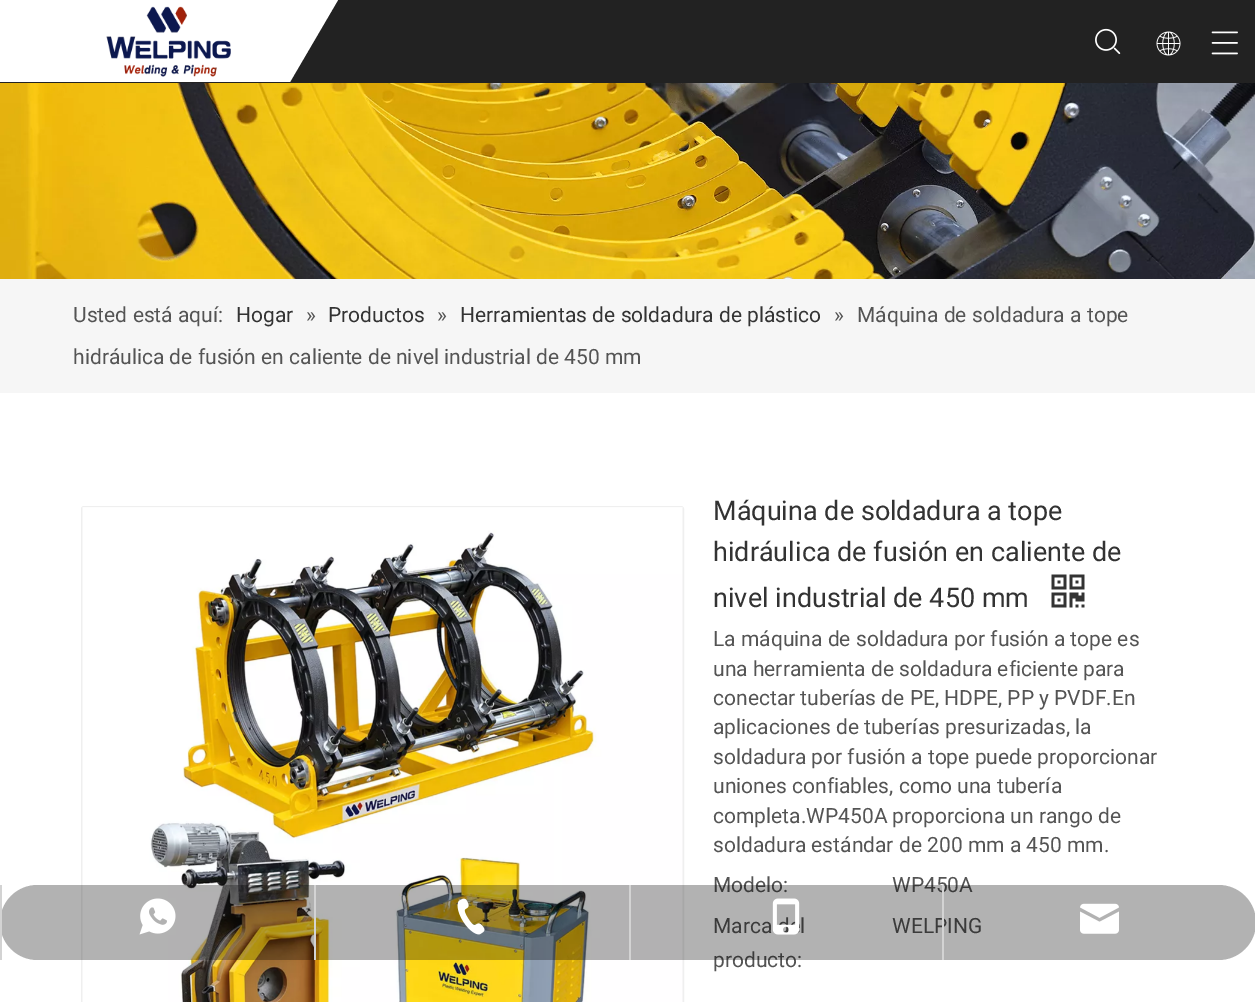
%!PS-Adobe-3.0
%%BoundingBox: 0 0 1255 1002
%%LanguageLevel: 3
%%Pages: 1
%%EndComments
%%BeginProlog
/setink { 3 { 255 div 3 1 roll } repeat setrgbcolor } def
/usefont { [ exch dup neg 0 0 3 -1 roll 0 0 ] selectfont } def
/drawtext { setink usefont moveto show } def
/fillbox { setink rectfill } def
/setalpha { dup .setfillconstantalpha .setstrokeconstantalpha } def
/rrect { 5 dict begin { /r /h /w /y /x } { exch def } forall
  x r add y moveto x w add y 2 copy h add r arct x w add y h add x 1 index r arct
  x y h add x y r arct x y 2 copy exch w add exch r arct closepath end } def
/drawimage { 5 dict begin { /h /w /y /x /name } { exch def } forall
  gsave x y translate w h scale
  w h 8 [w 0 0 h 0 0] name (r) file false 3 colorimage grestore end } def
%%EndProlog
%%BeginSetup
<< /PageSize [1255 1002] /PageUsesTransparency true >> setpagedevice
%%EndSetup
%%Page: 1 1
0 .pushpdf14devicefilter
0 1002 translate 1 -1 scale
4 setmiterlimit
0 0 1255 1002 255 255 255 fillbox
0 0 1255 83 34 34 34 fillbox
255 255 255 setink
0 0 moveto 0 82 lineto 290 82 lineto 338 0 lineto closepath fill
(assets/img1.rgb) 106 6 125 71 drawimage
(assets/img2.rgb) 1095 28 26 27 drawimage
(assets/img3.rgb) 1156 31 25 25 drawimage
(assets/img4.rgb) 1211 31 27 24 drawimage
(assets/img5.rgb) 0 83 1255 196 drawimage
0 279 1255 114 246 246 246 fillbox
(Usted está aquí:) 73 322 /Roboto-Regular 21 84 84 84 drawtext
(Hogar) 236 322 /Roboto-Regular 21 51 51 51 drawtext
(») 306 322 /Roboto-Regular 21 84 84 84 drawtext
(Productos) 328 322 /Roboto-Regular 21 51 51 51 drawtext
(») 437 322 /Roboto-Regular 21 84 84 84 drawtext
(Herramientas de soldadura de plástico) 460 322 /Roboto-Regular 21 51 51 51 drawtext
(») 834 322 /Roboto-Regular 21 84 84 84 drawtext
(Máquina de soldadura a tope) 857 322 /Roboto-Regular 21 84 84 84 drawtext
(hidráulica de fusión en caliente de nivel industrial de 450 mm) 73 364 /Roboto-Regular 21 84 84 84 drawtext
239 239 239 setink
2 setlinewidth
82 507 601 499 2 rrect stroke
(assets/img6.rgb) 82 507 601 495 drawimage
(Máquina de soldadura a tope) 713 520 /Roboto-Regular 27 51 51 51 drawtext
(hidráulica de fusión en caliente de) 713 561 /Roboto-Regular 27 51 51 51 drawtext
(nivel industrial de 450 mm) 713 607 /Roboto-Regular 27 51 51 51 drawtext
(assets/img7.rgb) 1051 574 34 34 drawimage
(La máquina de soldadura por fusión a tope es) 713 646 /Roboto-Regular 21 84 84 84 drawtext
(una herramienta de soldadura eficiente para) 713 676 /Roboto-Regular 21 84 84 84 drawtext
(conectar tuberías de PE, HDPE, PP y PVDF.En) 713 705 /Roboto-Regular 21 84 84 84 drawtext
(aplicaciones de tuberías presurizadas, la) 713 734 /Roboto-Regular 21 84 84 84 drawtext
(soldadura por fusión a tope puede proporcionar) 713 764 /Roboto-Regular 21 84 84 84 drawtext
(uniones confiables, como una tubería) 713 793 /Roboto-Regular 21 84 84 84 drawtext
(completa.WP450A proporciona un rango de) 713 823 /Roboto-Regular 21 84 84 84 drawtext
(soldadura estándar de 200 mm a 450 mm.) 713 852 /Roboto-Regular 21 84 84 84 drawtext
(Modelo:) 713 892 /Roboto-Regular 21 84 84 84 drawtext
(WP450A) 892 892 /Roboto-Regular 21 84 84 84 drawtext
(Marca del) 713 933 /Roboto-Regular 21 84 84 84 drawtext
(producto:) 713 967 /Roboto-Regular 21 84 84 84 drawtext
(WELPING) 892 933 /Roboto-Regular 21 84 84 84 drawtext
0.3 setalpha
0 0 0 setink
0 885 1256 75 37.5 rrect fill
1 setalpha
0 885 2 75 211 211 211 fillbox
(assets/img8.rgb) 139 898 37 37 drawimage
314 885 2 75 211 211 211 fillbox
(assets/img9.rgb) 457 898 28 37 drawimage
629 885 2 75 211 211 211 fillbox
(assets/img10.rgb) 772 898 28 37 drawimage
942 885 2 75 211 211 211 fillbox
(assets/img11.rgb) 1080 903 39 31 drawimage
.poppdf14devicefilter showpage
%%EOF
